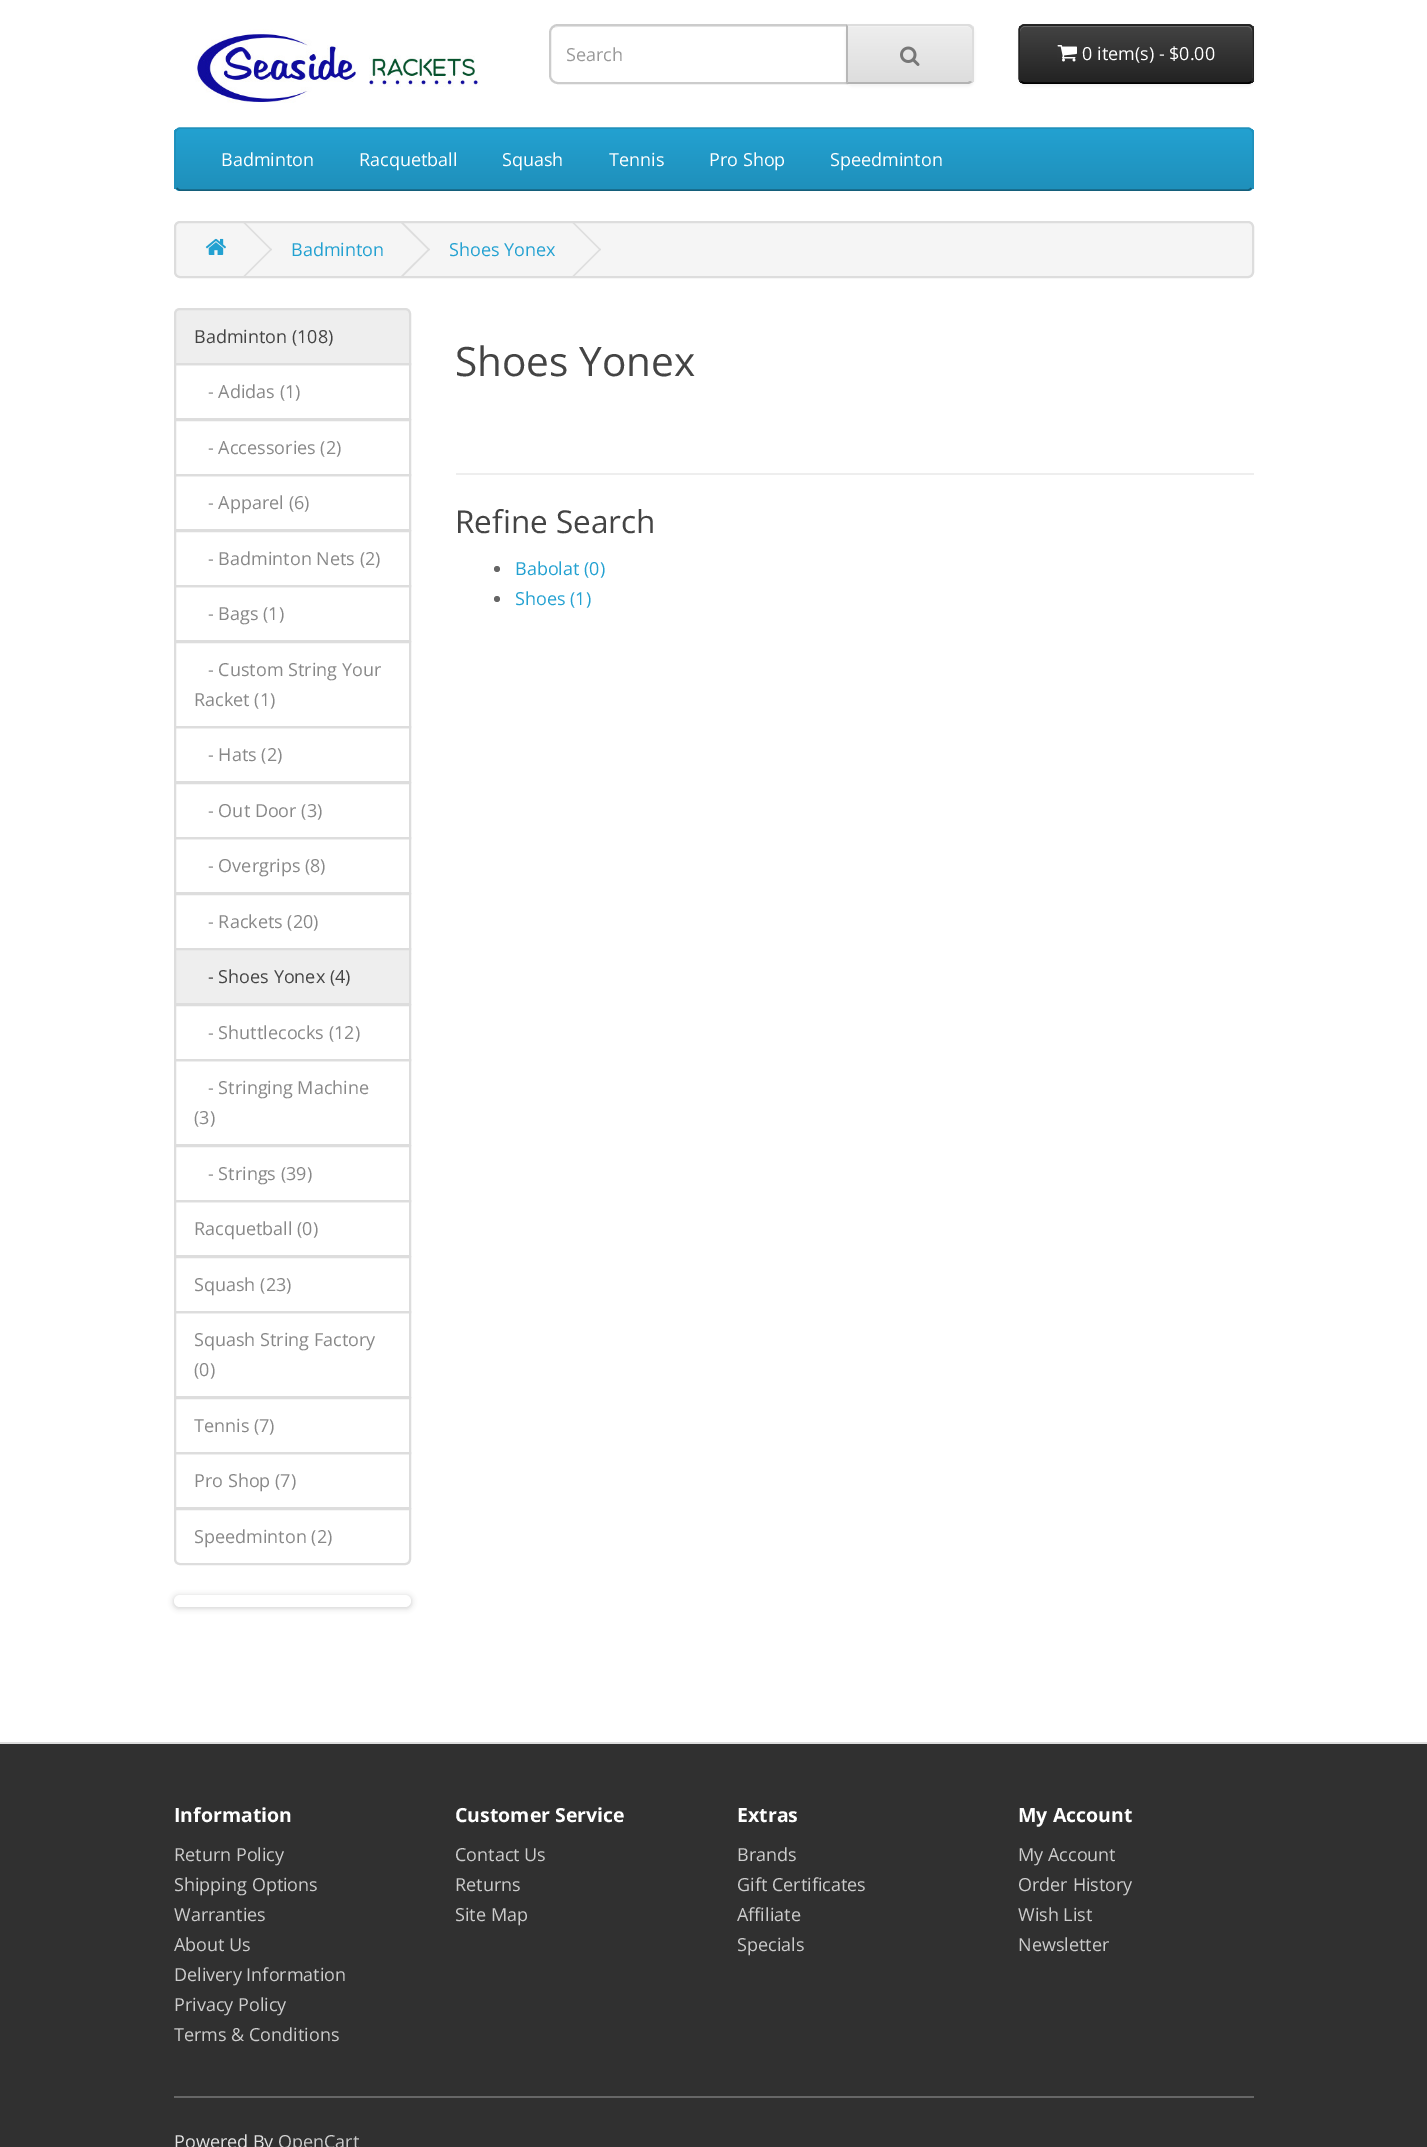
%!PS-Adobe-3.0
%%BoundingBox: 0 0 1427 2147
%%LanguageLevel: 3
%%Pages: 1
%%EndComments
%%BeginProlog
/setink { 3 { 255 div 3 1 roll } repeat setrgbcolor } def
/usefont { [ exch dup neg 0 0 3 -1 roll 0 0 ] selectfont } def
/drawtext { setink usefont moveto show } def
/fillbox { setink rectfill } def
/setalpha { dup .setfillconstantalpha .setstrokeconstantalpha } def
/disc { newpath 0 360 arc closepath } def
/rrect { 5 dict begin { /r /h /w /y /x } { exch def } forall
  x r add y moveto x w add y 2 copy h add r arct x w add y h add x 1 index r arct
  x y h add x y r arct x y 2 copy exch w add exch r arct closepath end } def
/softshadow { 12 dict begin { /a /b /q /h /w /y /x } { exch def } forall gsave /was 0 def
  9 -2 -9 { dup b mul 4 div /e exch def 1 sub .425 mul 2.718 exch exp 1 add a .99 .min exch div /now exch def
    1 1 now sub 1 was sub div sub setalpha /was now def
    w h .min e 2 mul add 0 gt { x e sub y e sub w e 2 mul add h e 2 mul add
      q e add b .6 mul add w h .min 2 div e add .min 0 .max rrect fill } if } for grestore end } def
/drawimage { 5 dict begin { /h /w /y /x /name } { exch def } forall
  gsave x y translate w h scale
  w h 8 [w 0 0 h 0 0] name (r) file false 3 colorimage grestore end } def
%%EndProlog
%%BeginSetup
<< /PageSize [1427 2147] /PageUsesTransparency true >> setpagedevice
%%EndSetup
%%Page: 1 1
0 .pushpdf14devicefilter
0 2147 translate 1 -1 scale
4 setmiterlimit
0 0 1427 2147 255 255 255 fillbox
(assets/img1.rgb) 195 29 285 74 drawimage
236 236 236 setink
558 27 moveto 846 27 lineto 846 26 lineto 559 26 lineto 557 26 555 27 553 28 curveto 555 28 556 27 558 27 curveto closepath fill
204 204 204 setink
2 setlinewidth
558 25 moveto 847 25 lineto 847 83 lineto 558 83 lineto 553.5 83 550 79.5 550 75 curveto 550 33 lineto 550 28.5 553.5 25 558 25 curveto closepath stroke
(Search) 566 61 /OpenSans-Regular 18 153 153 153 drawtext
0 0 0 setink
846 26 128 60 6 1.5 0.05 softshadow
231 231 231 setink
846 24 moveto 968 24 lineto 971.5 24 974 26.5 974 30 curveto 974 78 lineto 974 81.5 971.5 84 968 84 curveto 846 84 lineto closepath fill
gsave
846 24 moveto 968 24 lineto 971.5 24 974 26.5 974 30 curveto 974 78 lineto 974 81.5 971.5 84 968 84 curveto 846 84 lineto closepath clip newpath
gsave 847 26 moveto 974 26 lineto 974 83 lineto 847 83 lineto closepath clip newpath
<< /ShadingType 2 /ColorSpace /DeviceRGB /Coords [910 25 910 83] /Extend [true true] /Function << /FunctionType 2 /Domain [0 1] /C0 [0.933 0.933 0.933] /C1 [0.867 0.867 0.867] /N 1 >> >> shfill grestore
grestore
241 241 241 setink
848 27 moveto 968 27 lineto 970 27 972 29 972 32 curveto 972 31 lineto 972 28 970 26 967 26 curveto 848 26 lineto closepath fill
221 221 221 setink
846 24 moveto 848 26 lineto 968 26 lineto 970 27 lineto 972 26 lineto 971 25 969 24 968 24 curveto closepath fill
974 80 moveto 972 82 lineto 970 81 lineto 971 80 972 79 972 78 curveto 972 30 lineto 972 29 971 28 970 27 curveto 972 26 lineto 974 28 lineto closepath fill
179 179 179 setink
968 84 moveto 969 84 971 83 972 82 curveto 970 81 lineto 968 82 lineto 848 82 lineto 846 84 lineto closepath fill
183 183 183 setink
846 24 moveto 846 84 lineto 848 82 lineto 848 26 lineto closepath fill
(assets/img2.rgb) 900 46 20 20 drawimage
0 0 0 setink
1019 26 235 60 6 1.5 0.05 softshadow
54 54 54 setink
1019 24 235 60 6 rrect fill
gsave
1019 24 235 60 6 rrect clip newpath
gsave 1019 26 moveto 1254 26 lineto 1254 83 lineto 1019 83 lineto closepath clip newpath
<< /ShadingType 2 /ColorSpace /DeviceRGB /Coords [1136 25 1136 83] /Extend [true true] /Function << /FunctionType 2 /Domain [0 1] /C0 [0.267 0.267 0.267] /C1 [0.133 0.133 0.133] /N 1 >> >> shfill grestore
grestore
0.2 setalpha
255 255 255 setink
1024 27 moveto 1248 27 lineto 1250 27 1252 29 1252 32 curveto 1252 81 lineto 1253 80 1253 79 1253 78 curveto 1253 31 lineto 1253 28 1251 26 1248 26 curveto 1025 26 lineto 1022 26 1020 28 1020 31 curveto 1020 32 lineto 1020 29 1022 27 1024 27 curveto closepath fill
1 setalpha
0 0 0 setink
1.5 setlinewidth
1251.5 81.5 moveto 1250.5 82.5 1249.5 83 1248 83 curveto 1024.5 83 lineto 1023 83 1022 82.5 1021 81.5 curveto stroke
34 34 34 setink
1021 81.5 moveto 1020 80.5 1019 79.5 1019 78 curveto 1019 30 lineto 1019 28.5 1020 27.5 1021 26.5 curveto 1022 25.5 1023 25 1024.5 25 curveto 1248 25 lineto 1249.5 25 1250.5 25.5 1251.5 26.5 curveto 1252.5 27.5 1253 28.5 1253 30 curveto 1253 78 lineto 1253 79.5 1252.5 80.5 1251.5 81.5 curveto stroke
(assets/img3.rgb) 1057 45 20 17 drawimage
(0 item\(s\) - $0.00) 1082 60 /OpenSans-Regular 18 255 255 255 drawtext
34 154 200 setink
174 128 1080 63 6 rrect fill
gsave
174 128 1080 63 6 rrect clip newpath
gsave 174 129 moveto 1254 129 lineto 1254 189 lineto 174 189 lineto closepath clip newpath
<< /ShadingType 2 /ColorSpace /DeviceRGB /Coords [714 129 714 189] /Extend [true true] /Function << /FunctionType 2 /Domain [0 1] /C0 [0.137 0.631 0.82] /C1 [0.122 0.565 0.733] /N 1 >> >> shfill grestore
grestore
20 94 122 setink
1251.5 188 moveto 1250.5 189 1249.5 190 1248 190 curveto 180 190 lineto 178.5 190 177.5 189 176.5 188 curveto stroke
31 144 187 setink
176.5 188 moveto 175.5 187 175 186 175 184.5 curveto 175 133.5 lineto 175 132 175.5 131 176.5 130 curveto 177.5 129 178.5 128 180 128 curveto 1248 128 lineto 1249.5 128 1250.5 129 1251.5 130 curveto 1252.5 131 1253 132 1253 133.5 curveto 1253 184.5 lineto 1253 186 1252.5 187 1251.5 188 curveto stroke
(Badminton) 221 166 /OpenSans-Regular 18 255 255 255 drawtext
(Racquetball) 359 166 /OpenSans-Regular 18 255 255 255 drawtext
(Squash) 502 166 /OpenSans-Regular 18 255 255 255 drawtext
(Tennis) 609 166 /OpenSans-Regular 18 255 255 255 drawtext
(Pro Shop) 709 166 /OpenSans-Regular 18 255 255 255 drawtext
(Speedminton) 830 166 /OpenSans-Regular 18 255 255 255 drawtext
245 245 245 setink
175 222 1078 55 5 rrect gsave fill grestore
221 221 221 setink
2 setlinewidth
stroke
(assets/img4.rgb) 205 238 21 17 drawimage
243.5 223 moveto 244.5 222 lineto 272 249.5 lineto 271 250.5 lineto closepath fill
243.5 276 moveto 271 248.5 lineto 272 249.5 lineto 244.5 277 lineto closepath fill
(Badminton) 291 256 /OpenSans-Regular 18 35 161 209 drawtext
221 221 221 setink
401 223 moveto 402.5 222 lineto 430 249.5 lineto 429 250.5 lineto closepath fill
401 276 moveto 429 248.5 lineto 430 249.5 lineto 402.5 277 lineto closepath fill
(Shoes Yonex) 449 256 /OpenSans-Regular 18 35 161 209 drawtext
221 221 221 setink
572.5 223 moveto 573.5 222 lineto 601 249.5 lineto 600 250.5 lineto closepath fill
572.5 276 moveto 600 248.5 lineto 601 249.5 lineto 573.5 277 lineto closepath fill
175 364 235 55 rectstroke
238 238 238 setink
180 309 moveto 405 309 lineto 408 309 410 311 410 314 curveto 410 364 lineto 175 364 lineto 175 314 lineto 175 311 177 309 180 309 curveto closepath gsave fill grestore
221 221 221 setink
stroke
(Badminton \(108\)) 194 343 /OpenSans-Regular 18 68 68 68 drawtext
(- Adidas \(1\)) 208 398 /OpenSans-Regular 18 136 136 136 drawtext
221 221 221 setink
175 420 235 55 rectstroke
(- Accessories \(2\)) 208 454 /OpenSans-Regular 18 136 136 136 drawtext
221 221 221 setink
175 475 235 55 rectstroke
(- Apparel \(6\)) 208 509 /OpenSans-Regular 18 136 136 136 drawtext
221 221 221 setink
175 531 235 55 rectstroke
(- Badminton Nets \(2\)) 208 565 /OpenSans-Regular 18 136 136 136 drawtext
221 221 221 setink
175 586 235 55 rectstroke
(- Bags \(1\)) 208 620 /OpenSans-Regular 18 136 136 136 drawtext
221 221 221 setink
175 642 235 85 rectstroke
(- Custom String Your) 208 676 /OpenSans-Regular 18 136 136 136 drawtext
(Racket \(1\)) 194 706 /OpenSans-Regular 18 136 136 136 drawtext
221 221 221 setink
175 727 235 55 rectstroke
(- Hats \(2\)) 208 761 /OpenSans-Regular 18 136 136 136 drawtext
221 221 221 setink
175 783 235 55 rectstroke
(- Out Door \(3\)) 208 817 /OpenSans-Regular 18 136 136 136 drawtext
221 221 221 setink
175 838 235 55 rectstroke
(- Overgrips \(8\)) 208 872 /OpenSans-Regular 18 136 136 136 drawtext
221 221 221 setink
175 894 235 55 rectstroke
(- Rackets \(20\)) 208 928 /OpenSans-Regular 18 136 136 136 drawtext
221 221 221 setink
175 1005 235 55 rectstroke
238 238 238 setink
175 949 moveto 410 949 lineto 410 1004 lineto 175 1004 lineto closepath gsave fill grestore
221 221 221 setink
stroke
(- Shoes Yonex \(4\)) 208 983 /OpenSans-Regular 18 68 68 68 drawtext
(- Shuttlecocks \(12\)) 208 1039 /OpenSans-Regular 18 136 136 136 drawtext
221 221 221 setink
175 1060 235 85 rectstroke
(- Stringing Machine) 208 1094 /OpenSans-Regular 18 136 136 136 drawtext
(\(3\)) 194 1124 /OpenSans-Regular 18 136 136 136 drawtext
221 221 221 setink
175 1146 235 55 rectstroke
(- Strings \(39\)) 208 1180 /OpenSans-Regular 18 136 136 136 drawtext
221 221 221 setink
175 1201 235 55 rectstroke
(Racquetball \(0\)) 194 1235 /OpenSans-Regular 18 136 136 136 drawtext
221 221 221 setink
175 1257 235 55 rectstroke
(Squash \(23\)) 194 1291 /OpenSans-Regular 18 136 136 136 drawtext
221 221 221 setink
175 1312 235 85 rectstroke
(Squash String Factory) 194 1346 /OpenSans-Regular 18 136 136 136 drawtext
(\(0\)) 194 1376 /OpenSans-Regular 18 136 136 136 drawtext
221 221 221 setink
175 1398 235 55 rectstroke
(Tennis \(7\)) 194 1432 /OpenSans-Regular 18 136 136 136 drawtext
221 221 221 setink
175 1453 235 55 rectstroke
(Pro Shop \(7\)) 194 1487 /OpenSans-Regular 18 136 136 136 drawtext
255 255 255 setink
175 1509 moveto 410 1509 lineto 410 1559 lineto 410 1562 408 1564 405 1564 curveto 180 1564 lineto 177 1564 175 1562 175 1559 curveto closepath gsave fill grestore
221 221 221 setink
stroke
(Speedminton \(2\)) 194 1543 /OpenSans-Regular 18 136 136 136 drawtext
0 0 0 setink
174 1596 237 12 6 3 0.2 softshadow
255 255 255 setink
174 1595 237 12 6 rrect fill
(Shoes Yonex) 455 376 /OpenSans-Regular 40.5 68 68 68 drawtext
456 473 798 2 238 238 238 fillbox
(Refine Search) 455 533 /OpenSans-Regular 31.5 68 68 68 drawtext
102 102 102 setink
497 569 3 disc fill
(Babolat \(0\)) 515 575 /OpenSans-Regular 18 35 161 209 drawtext
102 102 102 setink
497 599 3 disc fill
(Shoes \(1\)) 515 605 /OpenSans-Regular 18 35 161 209 drawtext
0 1744 1427 403 48 48 48 fillbox
0 1742 1427 2 221 221 221 fillbox
(Information) 174 1822 /OpenSans-Bold 19.5 255 255 255 drawtext
(Return Policy) 174 1861 /OpenSans-Regular 18 204 204 204 drawtext
(Shipping Options) 174 1891 /OpenSans-Regular 18 204 204 204 drawtext
(Warranties) 174 1921 /OpenSans-Regular 18 204 204 204 drawtext
(About Us) 174 1951 /OpenSans-Regular 18 204 204 204 drawtext
(Delivery Information) 174 1981 /OpenSans-Regular 18 204 204 204 drawtext
(Privacy Policy) 174 2011 /OpenSans-Regular 18 204 204 204 drawtext
(Terms & Conditions) 174 2041 /OpenSans-Regular 18 204 204 204 drawtext
(Customer Service) 455 1822 /OpenSans-Bold 19.5 255 255 255 drawtext
(Contact Us) 455 1861 /OpenSans-Regular 18 204 204 204 drawtext
(Returns) 455 1891 /OpenSans-Regular 18 204 204 204 drawtext
(Site Map) 455 1921 /OpenSans-Regular 18 204 204 204 drawtext
(Extras) 737 1822 /OpenSans-Bold 19.5 255 255 255 drawtext
(Brands) 737 1861 /OpenSans-Regular 18 204 204 204 drawtext
(Gift Certificates) 737 1891 /OpenSans-Regular 18 204 204 204 drawtext
(Affiliate) 737 1921 /OpenSans-Regular 18 204 204 204 drawtext
(Specials) 737 1951 /OpenSans-Regular 18 204 204 204 drawtext
(My Account) 1018 1822 /OpenSans-Bold 19.5 255 255 255 drawtext
(My Account) 1018 1861 /OpenSans-Regular 18 204 204 204 drawtext
(Order History) 1018 1891 /OpenSans-Regular 18 204 204 204 drawtext
(Wish List) 1018 1921 /OpenSans-Regular 18 204 204 204 drawtext
(Newsletter) 1018 1951 /OpenSans-Regular 18 204 204 204 drawtext
174 2096 1080 2 102 102 102 fillbox
(Powered By) 174 2148 /OpenSans-Regular 18 226 226 226 drawtext
(OpenCart) 278 2148 /OpenSans-Regular 18 204 204 204 drawtext
.poppdf14devicefilter showpage
%%EOF
